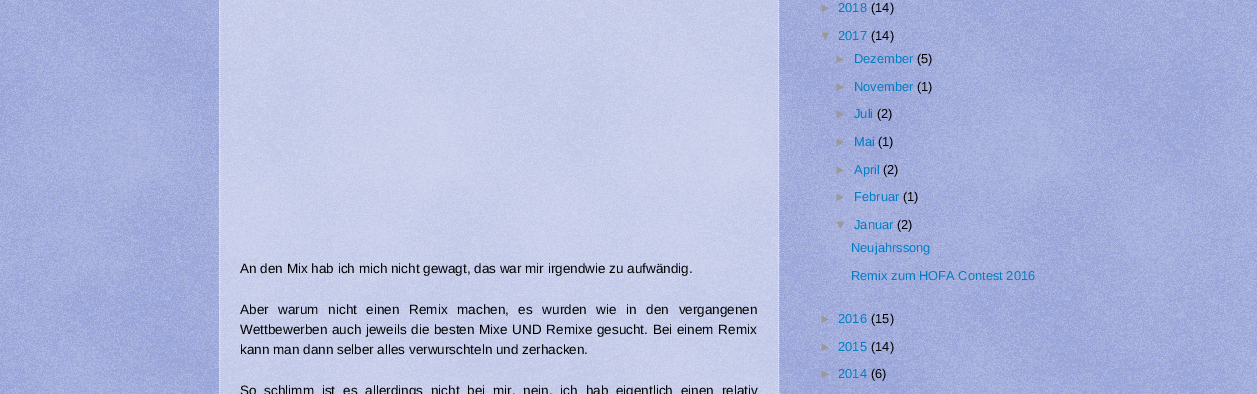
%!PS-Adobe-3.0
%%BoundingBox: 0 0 1257 394
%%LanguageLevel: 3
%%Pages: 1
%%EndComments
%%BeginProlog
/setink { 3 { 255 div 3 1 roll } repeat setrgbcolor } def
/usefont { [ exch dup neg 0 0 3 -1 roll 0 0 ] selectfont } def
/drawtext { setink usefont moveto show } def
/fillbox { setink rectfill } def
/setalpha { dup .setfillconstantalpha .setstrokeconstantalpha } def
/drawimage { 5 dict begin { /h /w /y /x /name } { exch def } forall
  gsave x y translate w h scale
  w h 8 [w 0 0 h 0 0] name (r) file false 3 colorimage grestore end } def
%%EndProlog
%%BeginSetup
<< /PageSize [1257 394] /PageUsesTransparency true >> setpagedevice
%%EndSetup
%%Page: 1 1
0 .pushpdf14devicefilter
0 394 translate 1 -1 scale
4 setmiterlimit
0 0 1257 394 80 100 190 fillbox
(assets/img1.rgb) 0 0 1257 394 drawimage
0.4 setalpha
219 0 560 394 255 255 255 fillbox
1 setalpha
252 229 205 setink
[1 1] 0 setdash
778.5 -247 moveto 778.5 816 lineto stroke
219.5 -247 moveto 219.5 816 lineto stroke
(An den Mix hab ich mich nicht gewagt, das war mir irgendwie zu aufwändig.) 240 273 /LiberationSans-Regular 13.5 0 0 0 drawtext
240 314 moveto 5.9 0 32 (Aber warum nicht einen Remix machen, es wurden wie in den vergangenen) widthshow
240 334 moveto 1 0 32 (Wettbewerben auch jeweils die besten Mixe UND Remixe gesucht. Bei einem Remix) widthshow
(kann man dann selber alles verwurschteln und zerhacken.) 240 354 /LiberationSans-Regular 13.5 0 0 0 drawtext
240 395 moveto 4.1 0 32 (So schlimm ist es allerdings nicht bei mir, nein, ich hab eigentlich einen relativ) widthshow
(►) 819 12 /LiberationSans-Regular 12.9 153 153 153 drawtext
(2018) 838 12 /LiberationSans-Regular 12.9 0 125 194 drawtext
(\(14\)) 871 12 /LiberationSans-Regular 12.9 0 0 0 drawtext
(▼) 819 40 /LiberationSans-Regular 12.9 153 153 153 drawtext
(2017) 838 40 /LiberationSans-Regular 12.9 0 125 194 drawtext
(\(14\)) 871 40 /LiberationSans-Regular 12.9 0 0 0 drawtext
(►) 834 63 /LiberationSans-Regular 12.9 153 153 153 drawtext
(Dezember) 854 63 /LiberationSans-Regular 12.9 0 125 194 drawtext
(\(5\)) 917 63 /LiberationSans-Regular 12.9 0 0 0 drawtext
(►) 834 91 /LiberationSans-Regular 12.9 153 153 153 drawtext
(November) 854 91 /LiberationSans-Regular 12.9 0 125 194 drawtext
(\(1\)) 917 91 /LiberationSans-Regular 12.9 0 0 0 drawtext
(►) 834 118 /LiberationSans-Regular 12.9 153 153 153 drawtext
(Juli) 854 118 /LiberationSans-Regular 12.9 0 125 194 drawtext
(\(2\)) 877 118 /LiberationSans-Regular 12.9 0 0 0 drawtext
(►) 834 146 /LiberationSans-Regular 12.9 153 153 153 drawtext
(Mai) 854 146 /LiberationSans-Regular 12.9 0 125 194 drawtext
(\(1\)) 878 146 /LiberationSans-Regular 12.9 0 0 0 drawtext
(►) 834 174 /LiberationSans-Regular 12.9 153 153 153 drawtext
(April) 854 174 /LiberationSans-Regular 12.9 0 125 194 drawtext
(\(2\)) 883 174 /LiberationSans-Regular 12.9 0 0 0 drawtext
(►) 834 201 /LiberationSans-Regular 12.9 153 153 153 drawtext
(Februar) 854 201 /LiberationSans-Regular 12.9 0 125 194 drawtext
(\(1\)) 903 201 /LiberationSans-Regular 12.9 0 0 0 drawtext
(▼) 834 229 /LiberationSans-Regular 12.9 153 153 153 drawtext
(Januar) 854 229 /LiberationSans-Regular 12.9 0 125 194 drawtext
(\(2\)) 897 229 /LiberationSans-Regular 12.9 0 0 0 drawtext
(Neujahrssong) 851 252 /LiberationSans-Regular 12.9 0 125 194 drawtext
(Remix zum HOFA Contest 2016) 851 280 /LiberationSans-Regular 12.9 0 125 194 drawtext
(►) 819 323 /LiberationSans-Regular 12.9 153 153 153 drawtext
(2016) 838 323 /LiberationSans-Regular 12.9 0 125 194 drawtext
(\(15\)) 871 323 /LiberationSans-Regular 12.9 0 0 0 drawtext
(►) 819 351 /LiberationSans-Regular 12.9 153 153 153 drawtext
(2015) 838 351 /LiberationSans-Regular 12.9 0 125 194 drawtext
(\(14\)) 871 351 /LiberationSans-Regular 12.9 0 0 0 drawtext
(►) 819 378 /LiberationSans-Regular 12.9 153 153 153 drawtext
(2014) 838 378 /LiberationSans-Regular 12.9 0 125 194 drawtext
(\(6\)) 871 378 /LiberationSans-Regular 12.9 0 0 0 drawtext
.poppdf14devicefilter showpage
%%EOF
